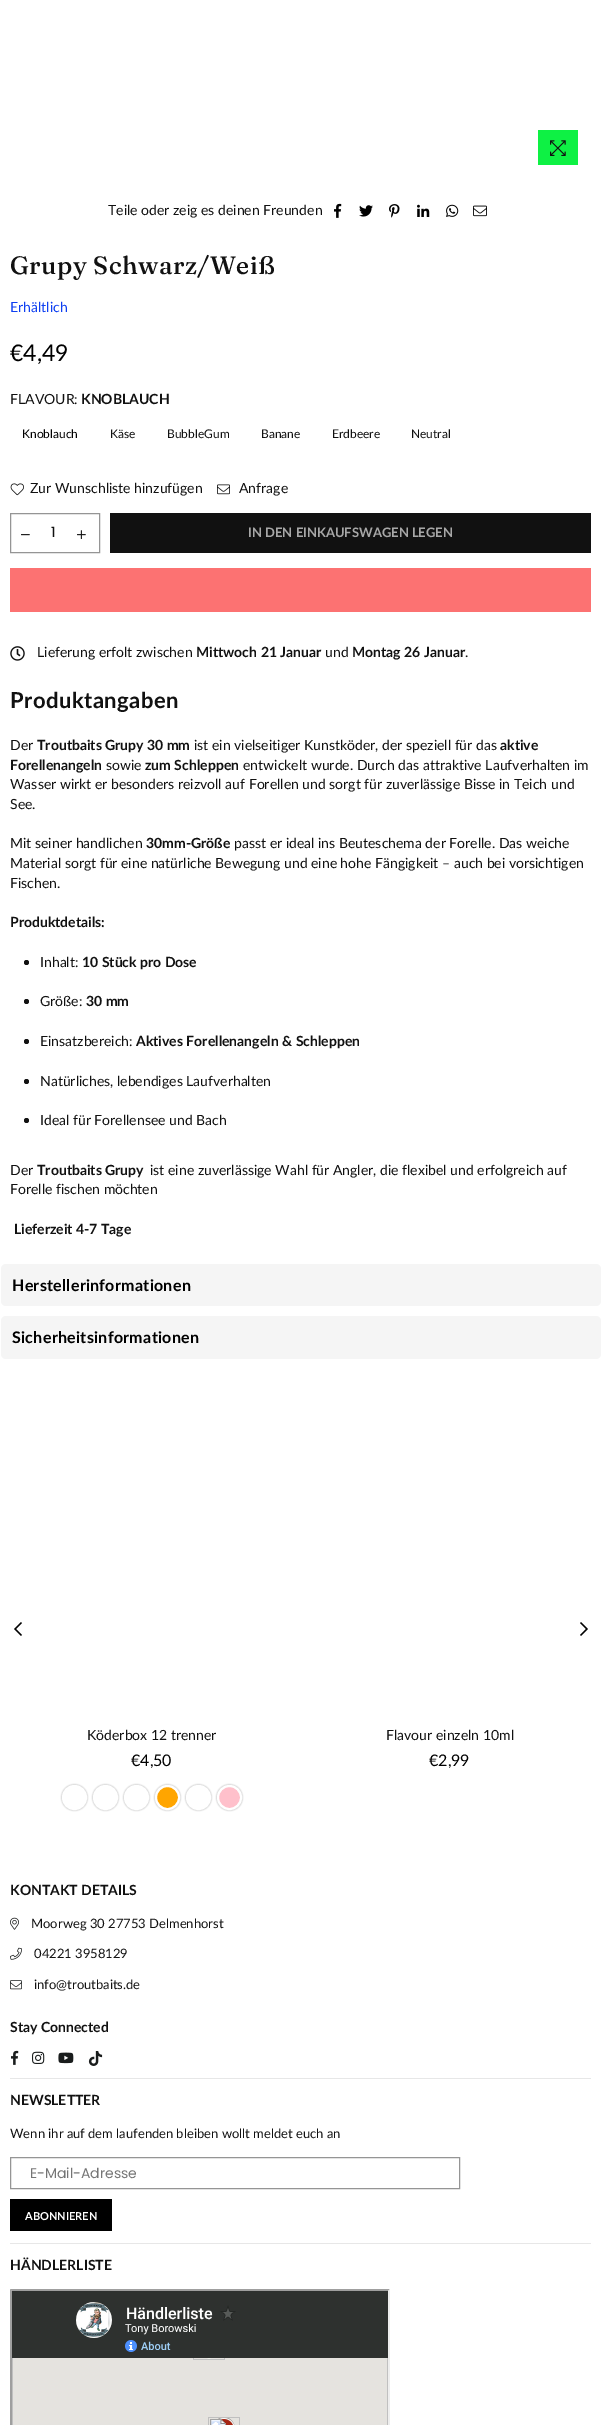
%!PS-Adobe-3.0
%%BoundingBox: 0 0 601 2425
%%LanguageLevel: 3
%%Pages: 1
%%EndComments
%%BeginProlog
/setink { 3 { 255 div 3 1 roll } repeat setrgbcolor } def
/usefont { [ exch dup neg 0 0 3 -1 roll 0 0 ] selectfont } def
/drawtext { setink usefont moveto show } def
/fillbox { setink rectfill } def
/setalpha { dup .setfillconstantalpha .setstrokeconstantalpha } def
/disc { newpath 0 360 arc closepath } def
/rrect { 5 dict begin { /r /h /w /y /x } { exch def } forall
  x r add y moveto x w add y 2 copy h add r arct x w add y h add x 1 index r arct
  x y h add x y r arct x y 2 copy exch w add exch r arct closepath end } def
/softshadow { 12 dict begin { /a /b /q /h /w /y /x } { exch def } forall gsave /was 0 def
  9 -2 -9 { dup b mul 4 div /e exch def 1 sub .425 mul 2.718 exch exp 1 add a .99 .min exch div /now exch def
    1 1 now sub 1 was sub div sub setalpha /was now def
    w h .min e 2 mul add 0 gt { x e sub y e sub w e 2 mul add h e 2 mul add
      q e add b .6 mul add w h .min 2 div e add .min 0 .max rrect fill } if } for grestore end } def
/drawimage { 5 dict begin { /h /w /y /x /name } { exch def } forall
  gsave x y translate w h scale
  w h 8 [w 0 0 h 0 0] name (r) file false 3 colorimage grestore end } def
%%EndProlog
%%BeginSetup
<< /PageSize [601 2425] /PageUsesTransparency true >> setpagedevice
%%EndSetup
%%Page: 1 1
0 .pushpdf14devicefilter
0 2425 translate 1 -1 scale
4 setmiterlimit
0 0 601 2425 255 255 255 fillbox
538 130 40 35 14 241 68 fillbox
(assets/img1.rgb) 550 140 16 16 drawimage
(Teile oder zeig es deinen Freunden) 108 215 /Lato-Regular 14 17 17 17 drawtext
(assets/img2.rgb) 334 203 8 15 drawimage
(assets/img3.rgb) 359 205 14 12 drawimage
(assets/img4.rgb) 389 204 11 14 drawimage
(assets/img5.rgb) 417 204 13 13 drawimage
(assets/img6.rgb) 446 204 13 13 drawimage
(assets/img7.rgb) 473 205 14 12 drawimage
/Fraunces-Medium 25 usefont
10 274 moveto 0.5 0 (Grupy Schwarz/Weiß) ashow
(Erhältlich) 10 312 /Lato-Regular 14 14 63 241 drawtext
(€4,49) 10 361 /Lato-Regular 23 0 0 0 drawtext
(FLAVOUR:) 10 404 /Lato-Regular 14 17 17 17 drawtext
(KNOBLAUCH) 81 404 /Lato-Bold 14 17 17 17 drawtext
(Knoblauch) 22 438 /Lato-Regular 12 0 0 0 drawtext
(Käse) 110 438 /Lato-Regular 12 17 17 17 drawtext
(BubbleGum) 167 438 /Lato-Regular 12 17 17 17 drawtext
(Banane) 261 438 /Lato-Regular 12 17 17 17 drawtext
(Erdbeere) 332 438 /Lato-Regular 12 17 17 17 drawtext
(Neutral) 411 438 /Lato-Regular 12 17 17 17 drawtext
(assets/img8.rgb) 10 483 14 13 drawimage
(Zur Wunschliste hinzufügen) 30 493 /Lato-Regular 14 17 17 17 drawtext
(assets/img9.rgb) 217 484 13 11 drawimage
(Anfrage) 239 493 /Lato-Regular 14 17 17 17 drawtext
149 149 149 setink
10.5 513.5 89 39 rectstroke
(assets/img10.rgb) 21 534 9 2 drawimage
(1) 51 537 /Poppins-Regular 14 17 17 17 drawtext
(assets/img11.rgb) 77 530 9 9 drawimage
110 513 481 40 17 17 17 fillbox
(IN DEN EINKAUFSWAGEN LEGEN) 248 537 /Lato-Bold 13 167 167 167 drawtext
10 568 581 44 252 114 114 fillbox
(assets/img12.rgb) 10 646 15 15 drawimage
(Lieferung erfolt zwischen) 37 657 /Lato-Regular 14 17 17 17 drawtext
(Mittwoch 21 Januar) 196 657 /Lato-Bold 14 17 17 17 drawtext
(und) 325 657 /Lato-Regular 14 17 17 17 drawtext
(Montag 26 Januar) 352 657 /Lato-Bold 14 17 17 17 drawtext
(.) 465 657 /Lato-Regular 14 17 17 17 drawtext
/Lato-Bold 22 usefont
10 708 moveto 0.5 0 (Produktangaben) ashow
(Der) 10 750 /Lato-Regular 14 17 17 17 drawtext
(Troutbaits Grupy 30 mm) 37 750 /Lato-Bold 14 17 17 17 drawtext
(ist ein vielseitiger Kunstköder, der speziell für das) 194 750 /Lato-Regular 14 17 17 17 drawtext
(aktive) 500 750 /Lato-Bold 14 17 17 17 drawtext
(Forellenangeln) 10 770 /Lato-Bold 14 17 17 17 drawtext
(sowie) 106 770 /Lato-Regular 14 17 17 17 drawtext
(zum Schleppen) 145 770 /Lato-Bold 14 17 17 17 drawtext
(entwickelt wurde. Durch das attraktive Laufverhalten im) 243 770 /Lato-Regular 14 17 17 17 drawtext
(Wasser wirkt er besonders reizvoll auf Forellen und sorgt für zuverlässige Bisse in Teich und) 10 789 /Lato-Regular 14 17 17 17 drawtext
(See.) 10 809 /Lato-Regular 14 17 17 17 drawtext
(Mit seiner handlichen) 10 848 /Lato-Regular 14 17 17 17 drawtext
(30mm-Größe) 146 848 /Lato-Bold 14 17 17 17 drawtext
(passt er ideal ins Beuteschema der Forelle. Das weiche) 234 848 /Lato-Regular 14 17 17 17 drawtext
(Material sorgt für eine natürliche Bewegung und eine hohe Fängigkeit – auch bei vorsichtigen) 10 868 /Lato-Regular 14 17 17 17 drawtext
(Fischen.) 10 888 /Lato-Regular 14 17 17 17 drawtext
(Produktdetails:) 10 927 /Lato-Bold 14 17 17 17 drawtext
26.5 962.5 2.5 disc fill
(Inhalt:) 40 967 /Lato-Regular 14 17 17 17 drawtext
(10 Stück pro Dose) 82 967 /Lato-Bold 14 17 17 17 drawtext
26.5 1001.5 2.5 disc fill
(Größe:) 40 1006 /Lato-Regular 14 17 17 17 drawtext
(30 mm) 86 1006 /Lato-Bold 14 17 17 17 drawtext
26.5 1041.5 2.5 disc fill
(Einsatzbereich:) 40 1046 /Lato-Regular 14 17 17 17 drawtext
(Aktives Forellenangeln & Schleppen) 136 1046 /Lato-Bold 14 17 17 17 drawtext
26.5 1081.5 2.5 disc fill
(Natürliches, lebendiges Laufverhalten) 40 1086 /Lato-Regular 14 17 17 17 drawtext
26.5 1120.5 2.5 disc fill
(Ideal für Forellensee und Bach) 40 1125 /Lato-Regular 14 17 17 17 drawtext
(Der) 10 1175 /Lato-Regular 14 17 17 17 drawtext
(Troutbaits Grupy) 37 1175 /Lato-Bold 14 17 17 17 drawtext
(ist eine zuverlässige Wahl für Angler, die flexibel und erfolgreich auf) 150 1175 /Lato-Regular 14 17 17 17 drawtext
(Forelle fischen möchten) 10 1194 /Lato-Regular 14 17 17 17 drawtext
(Lieferzeit 4-7 Tage) 14 1234 /Lato-Bold 14 17 17 17 drawtext
245 245 245 setink
1 1264 600 42 5 rrect fill
/Lato-Bold 16 usefont
0 0 0 setink
12 1291 moveto 0.3 0 (Herstellerinformationen) ashow
245 245 245 setink
1 1316 600 43 5 rrect fill
0 0 0 setink
12 1343 moveto 0.3 0 (Sicherheitsinformationen) ashow
(assets/img13.rgb) 14 1622 8 14 drawimage
(assets/img14.rgb) 580 1622 8 14 drawimage
(Köderbox 12 trenner) 87 1740 /Lato-Regular 14 17 17 17 drawtext
(€4,50) 131 1766 /Lato-Regular 16 0 0 0 drawtext
gsave
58 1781 moveto 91 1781 lineto 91 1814 lineto 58 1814 lineto closepath 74.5 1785 moveto 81.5 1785 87 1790.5 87 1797.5 curveto 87 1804.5 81.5 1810 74.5 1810 curveto 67.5 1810 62 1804.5 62 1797.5 curveto 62 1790.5 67.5 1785 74.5 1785 curveto closepath eoclip newpath
221 221 221 setink
61 1784 27 27 13.5 0.5 1 softshadow
grestore
255 255 255 setink
2 setlinewidth
74.5 1797.5 11.5 disc stroke
gsave
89 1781 moveto 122 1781 lineto 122 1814 lineto 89 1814 lineto closepath 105.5 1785 moveto 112.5 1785 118 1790.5 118 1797.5 curveto 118 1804.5 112.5 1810 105.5 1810 curveto 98.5 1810 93 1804.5 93 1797.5 curveto 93 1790.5 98.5 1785 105.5 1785 curveto closepath eoclip newpath
221 221 221 setink
92 1784 27 27 13.5 0.5 1 softshadow
grestore
105.5 1797.5 11.5 disc stroke
gsave
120 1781 moveto 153 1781 lineto 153 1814 lineto 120 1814 lineto closepath 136.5 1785 moveto 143.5 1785 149 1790.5 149 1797.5 curveto 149 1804.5 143.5 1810 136.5 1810 curveto 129.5 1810 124 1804.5 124 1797.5 curveto 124 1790.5 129.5 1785 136.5 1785 curveto closepath eoclip newpath
221 221 221 setink
123 1784 27 27 13.5 0.5 1 softshadow
grestore
136.5 1797.5 11.5 disc stroke
221 221 221 setink
154 1784 27 27 13.5 0.5 1 softshadow
255 165 0 setink
167.5 1797.5 11.5 disc gsave fill grestore
255 255 255 setink
stroke
gsave
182 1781 moveto 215 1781 lineto 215 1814 lineto 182 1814 lineto closepath 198.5 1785 moveto 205.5 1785 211 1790.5 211 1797.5 curveto 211 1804.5 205.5 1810 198.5 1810 curveto 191.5 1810 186 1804.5 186 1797.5 curveto 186 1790.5 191.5 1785 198.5 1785 curveto closepath eoclip newpath
221 221 221 setink
185 1784 27 27 13.5 0.5 1 softshadow
grestore
198.5 1797.5 11.5 disc stroke
221 221 221 setink
216 1784 27 27 13.5 0.5 1 softshadow
255 192 203 setink
229.5 1797.5 11.5 disc gsave fill grestore
255 255 255 setink
stroke
(Flavour einzeln 10ml) 386 1740 /Lato-Regular 14 17 17 17 drawtext
(€2,99) 429 1766 /Lato-Regular 16 0 0 0 drawtext
(KONTAKT DETAILS) 10 1895 /Lato-Bold 14 17 17 17 drawtext
(assets/img15.rgb) 10 1917 9 13 drawimage
(Moorweg 30 27753 Delmenhorst) 31 1928 /Lato-Regular 13 17 17 17 drawtext
(assets/img16.rgb) 10 1947 12 13 drawimage
(04221 3958129) 34 1958 /Lato-Regular 13 17 17 17 drawtext
(assets/img17.rgb) 10 1980 12 10 drawimage
(info@troutbaits.de) 34 1989 /Lato-Regular 13 17 17 17 drawtext
(Stay Connected) 10 2032 /Lato-Bold 14 17 17 17 drawtext
(assets/img18.rgb) 11 2050 8 15 drawimage
(assets/img19.rgb) 32 2051 13 13 drawimage
(assets/img20.rgb) 58 2052 16 12 drawimage
(assets/img21.rgb) 88 2051 15 15 drawimage
10 2078 581 1 231 231 231 fillbox
(NEWSLETTER) 10 2105 /Lato-Bold 14 17 17 17 drawtext
(Wenn ihr auf dem laufenden bleiben wollt meldet euch an) 10 2138 /Lato-Regular 13 17 17 17 drawtext
149 149 149 setink
1 setlinewidth
10.5 2157.5 449 31 rectstroke
(E-Mail-Adresse) 30 2178 /Poppins-Regular 14 117 117 117 drawtext
10 2199 102 32 0 0 0 fillbox
(ABONNIEREN) 25 2220 /Lato-Bold 11 255 255 255 drawtext
10 2243 581 1 231 231 231 fillbox
(HÄNDLERLISTE) 10 2270 /Lato-Bold 14 17 17 17 drawtext
159 159 159 setink
10 2289 moveto 390 2289 lineto 388 2291 lineto 12 2291 lineto closepath fill
10 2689 moveto 10 2289 lineto 12 2291 lineto 12 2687 lineto closepath fill
(assets/img22.rgb) 12 2291 376 134 drawimage
238 238 238 setink
390 2289 moveto 390 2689 lineto 388 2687 lineto 388 2291 lineto closepath fill
.poppdf14devicefilter showpage
%%EOF
